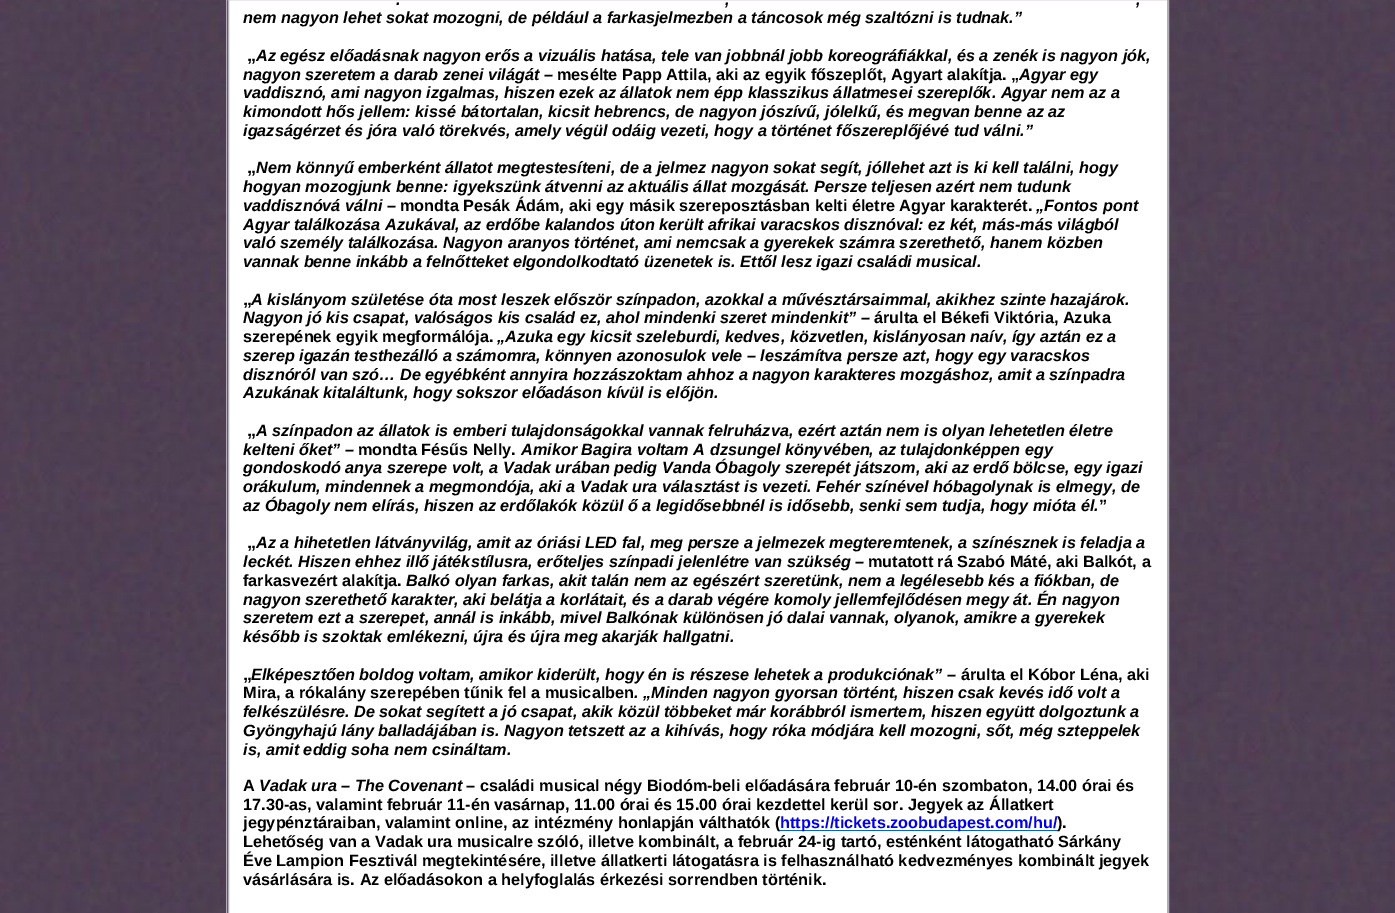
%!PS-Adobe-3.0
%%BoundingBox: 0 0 1395 913
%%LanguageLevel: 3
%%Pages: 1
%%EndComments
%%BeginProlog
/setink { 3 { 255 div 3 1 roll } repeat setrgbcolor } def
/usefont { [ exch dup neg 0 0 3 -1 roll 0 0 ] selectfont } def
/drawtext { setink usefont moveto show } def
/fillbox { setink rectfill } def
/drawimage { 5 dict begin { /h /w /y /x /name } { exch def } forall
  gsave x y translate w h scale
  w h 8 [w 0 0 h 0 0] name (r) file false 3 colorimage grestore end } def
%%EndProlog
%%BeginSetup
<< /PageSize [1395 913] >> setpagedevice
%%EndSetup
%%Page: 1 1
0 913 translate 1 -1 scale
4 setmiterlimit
0 0 1395 913 255 255 255 fillbox
(assets/img1.rgb) 0 0 1395 913 drawimage
176 171 181 setink
226.5 -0.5 942 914 rectstroke
255 255 255 setink
228.5 -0.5 moveto 1167.5 -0.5 lineto 1167.5 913.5 lineto 228.5 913.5 lineto closepath gsave fill grestore
176 171 181 setink
stroke
(.) 396 5 /LiberationSans-BoldItalic 16.25 0 0 0 drawtext
(,) 725 5 /LiberationSans-BoldItalic 16.25 0 0 0 drawtext
(,) 1136 5 /LiberationSans-BoldItalic 16.25 0 0 0 drawtext
(nem nagyon lehet sokat mozogni, de például a farkasjelmezben a táncosok még szaltózni is tudnak.”) 243 23 /LiberationSans-BoldItalic 16.25 0 0 0 drawtext
(„) 247 61 /LiberationSans-Bold 18 0 0 0 drawtext
(Az egész előadásnak nagyon erős a vizuális hatása, tele van jobbnál jobb koreográfiákkal, és a zenék is nagyon jók,) 256 61 /LiberationSans-BoldItalic 16.25 0 0 0 drawtext
(nagyon szeretem a darab zenei világát –) 243 80 /LiberationSans-BoldItalic 16.25 0 0 0 drawtext
(mesélte Papp Attila, aki az egyik főszeplőt, Agyart alakítja. „) 557 80 /LiberationSans-Bold 16.25 0 0 0 drawtext
(Agyar egy) 1019 80 /LiberationSans-BoldItalic 16.25 0 0 0 drawtext
(vaddisznó, ami nagyon izgalmas, hiszen ezek az állatok nem épp klasszikus állatmesei szereplők. Agyar nem az a) 243 98 /LiberationSans-BoldItalic 16.25 0 0 0 drawtext
(kimondott hős jellem: kissé bátortalan, kicsit hebrencs, de nagyon jószívű, jólelkű, és megvan benne az az) 243 117 /LiberationSans-BoldItalic 16.25 0 0 0 drawtext
(igazságérzet és jóra való törekvés, amely végül odáig vezeti, hogy a történet főszereplőjévé tud válni.”) 243 136 /LiberationSans-BoldItalic 16.25 0 0 0 drawtext
(„) 247 173 /LiberationSans-Bold 18 0 0 0 drawtext
(Nem könnyű emberként állatot megtestesíteni, de a jelmez nagyon sokat segít, jóllehet azt is ki kell találni, hogy) 256 173 /LiberationSans-BoldItalic 16.25 0 0 0 drawtext
(hogyan mozogjunk benne: igyekszünk átvenni az aktuális állat mozgását. Persze teljesen azért nem tudunk) 243 192 /LiberationSans-BoldItalic 16.25 0 0 0 drawtext
(vaddisznóvá válni –) 243 211 /LiberationSans-BoldItalic 16.25 0 0 0 drawtext
(mondta Pesák Ádám) 400 211 /LiberationSans-Bold 16.25 0 0 0 drawtext
(,) 560 211 /LiberationSans-BoldItalic 16.25 0 0 0 drawtext
(aki egy másik szereposztásban kelti életre Agyar karakterét.) 569 211 /LiberationSans-Bold 16.25 0 0 0 drawtext
(„Fontos pont) 1036 211 /LiberationSans-BoldItalic 16.25 0 0 0 drawtext
(Agyar találkozása Azukával, az erdőbe kalandos úton került afrikai varacskos disznóval: ez két, más-más világból) 243 230 /LiberationSans-BoldItalic 16.25 0 0 0 drawtext
(való személy találkozása. Nagyon aranyos történet, ami nemcsak a gyerekek számra szerethető, hanem közben) 243 248 /LiberationSans-BoldItalic 16.25 0 0 0 drawtext
(vannak benne inkább a felnőtteket elgondolkodtató üzenetek is. Ettől lesz igazi családi musical.) 243 267 /LiberationSans-BoldItalic 16.25 0 0 0 drawtext
(„) 243 305 /LiberationSans-Bold 18 0 0 0 drawtext
(A kislányom születése óta most leszek először színpadon, azokkal a művésztársaimmal, akikhez szinte hazajárok.) 251 305 /LiberationSans-BoldItalic 16.25 0 0 0 drawtext
(Nagyon jó kis csapat, valóságos kis család ez, ahol mindenki szeret mindenkit” –) 243 323 /LiberationSans-BoldItalic 16.25 0 0 0 drawtext
(árulta el Békefi Viktória, Azuka) 874 323 /LiberationSans-Bold 16.25 0 0 0 drawtext
(szerepének egyik megformálója.) 243 342 /LiberationSans-Bold 16.25 0 0 0 drawtext
(„Azuka egy kicsit szeleburdi, kedves, közvetlen, kislányosan naív, így aztán ez a) 497 342 /LiberationSans-BoldItalic 16.25 0 0 0 drawtext
(szerep igazán testhezálló a számomra, könnyen azonosulok vele – leszámítva persze azt, hogy egy varacskos) 243 361 /LiberationSans-BoldItalic 16.25 0 0 0 drawtext
(disznóról van szó… De egyébként annyira hozzászoktam ahhoz a nagyon karakteres mozgáshoz, amit a színpadra) 243 380 /LiberationSans-BoldItalic 16.25 0 0 0 drawtext
(Azukának kitaláltunk, hogy sokszor előadáson kívül is előjön.) 243 398 /LiberationSans-BoldItalic 16.25 0 0 0 drawtext
(„) 247 436 /LiberationSans-Bold 18 0 0 0 drawtext
(A színpadon az állatok is emberi tulajdonságokkal vannak felruházva, ezért aztán nem is olyan lehetetlen életre) 256 436 /LiberationSans-BoldItalic 16.25 0 0 0 drawtext
(kelteni őket” –) 243 455 /LiberationSans-BoldItalic 16.25 0 0 0 drawtext
(mondta Fésűs Nelly.) 358 455 /LiberationSans-Bold 16.25 0 0 0 drawtext
(Amikor Bagira voltam A dzsungel könyvében, az tulajdonképpen egy) 521 455 /LiberationSans-BoldItalic 16.25 0 0 0 drawtext
(gondoskodó anya szerepe volt, a Vadak urában pedig Vanda Óbagoly szerepét játszom, aki az erdő bölcse, egy igazi) 243 473 /LiberationSans-BoldItalic 16.25 0 0 0 drawtext
(orákulum, mindennek a megmondója, aki a Vadak ura választást is vezeti. Fehér színével hóbagolynak is elmegy, de) 243 492 /LiberationSans-BoldItalic 16.25 0 0 0 drawtext
(az Óbagoly nem elírás, hiszen az erdőlakók közül ő a legidősebbnél is idősebb, senki sem tudja, hogy mióta él.) 243 511 /LiberationSans-BoldItalic 16.25 0 0 0 drawtext
(”) 1099 511 /LiberationSans-Bold 16.25 0 0 0 drawtext
(„) 247 548 /LiberationSans-Bold 18 0 0 0 drawtext
(Az a hihetetlen látványvilág, amit az óriási LED fal, meg persze a jelmezek megteremtenek, a színésznek is feladja a) 256 548 /LiberationSans-BoldItalic 16.25 0 0 0 drawtext
(leckét. Hiszen ehhez illő játékstílusra, erőteljes színpadi jelenlétre van szükség –) 243 567 /LiberationSans-BoldItalic 16.25 0 0 0 drawtext
(mutatott rá Szabó Máté, aki Balkót, a) 868 567 /LiberationSans-Bold 16.25 0 0 0 drawtext
(farkasvezért alakítja.) 243 586 /LiberationSans-Bold 16.25 0 0 0 drawtext
(Balkó olyan farkas, akit talán nem az egészért szeretünk, nem a legélesebb kés a fiókban, de) 406 586 /LiberationSans-BoldItalic 16.25 0 0 0 drawtext
(nagyon szerethető karakter, aki belátja a korlátait, és a darab végére komoly jellemfejlődésen megy át. Én nagyon) 243 605 /LiberationSans-BoldItalic 16.25 0 0 0 drawtext
(szeretem ezt a szerepet, annál is inkább, mivel Balkónak különösen jó dalai vannak, olyanok, amikre a gyerekek) 243 623 /LiberationSans-BoldItalic 16.25 0 0 0 drawtext
(később is szoktak emlékezni, újra és újra meg akarják hallgatni.) 243 642 /LiberationSans-BoldItalic 16.25 0 0 0 drawtext
(„) 243 680 /LiberationSans-Bold 18 0 0 0 drawtext
(Elképesztően boldog voltam, amikor kiderült, hogy én is részese lehetek a produkciónak” –) 251 680 /LiberationSans-BoldItalic 16.25 0 0 0 drawtext
(árulta el Kóbor Léna, aki) 961 680 /LiberationSans-Bold 16.25 0 0 0 drawtext
(Mira, a rókalány szerepében tűnik fel a musicalben) 243 698 /LiberationSans-Bold 16.25 0 0 0 drawtext
(. „Minden nagyon gyorsan történt, hiszen csak kevés idő volt a) 634 698 /LiberationSans-BoldItalic 16.25 0 0 0 drawtext
(felkészülésre. De sokat segített a jó csapat, akik közül többeket már korábbról ismertem, hiszen együtt dolgoztunk a) 243 717 /LiberationSans-BoldItalic 16.25 0 0 0 drawtext
(Gyöngyhajú lány balladájában is. Nagyon tetszett az a kihívás, hogy róka módjára kell mozogni, sőt, még szteppelek) 243 736 /LiberationSans-BoldItalic 16.25 0 0 0 drawtext
(is, amit eddig soha nem csináltam.) 243 755 /LiberationSans-BoldItalic 16.25 0 0 0 drawtext
(A) 243 791 /LiberationSans-Bold 16.25 0 0 0 drawtext
(Vadak ura – The Covenant) 259 791 /LiberationSans-BoldItalic 16.25 0 0 0 drawtext
(– családi musical négy Biodóm-beli előadására február 10-én szombaton, 14.00 órai és) 466 791 /LiberationSans-Bold 16.25 0 0 0 drawtext
(17.30-as, valamint február 11-én vasárnap, 11.00 órai és 15.00 órai kezdettel kerül sor. Jegyek az Állatkert) 243 810 /LiberationSans-Bold 16.25 0 0 0 drawtext
(jegypénztáraiban, valamint online, az intézmény honlapján válthatók \() 243 828 /LiberationSans-Bold 16.25 0 0 0 drawtext
780 830 278 1 5 99 193 fillbox
(https://tickets.zoobudapest.com/hu/) 780 828 /LiberationSans-Bold 16.25 0 0 238 drawtext
(\).) 1057 828 /LiberationSans-Bold 16.25 0 0 0 drawtext
(Lehetőség van a Vadak ura musicalre szóló, illetve kombinált, a február 24-ig tartó, esténként látogatható Sárkány) 243 847 /LiberationSans-Bold 16.25 0 0 0 drawtext
(Éve Lampion Fesztivál megtekintésére, illetve állatkerti látogatásra is felhasználható kedvezményes kombinált jegyek) 243 866 /LiberationSans-Bold 16.25 0 0 0 drawtext
(vásárlására is. Az előadásokon a helyfoglalás érkezési sorrendben történik.) 243 885 /LiberationSans-Bold 16.25 0 0 0 drawtext
showpage
%%EOF
